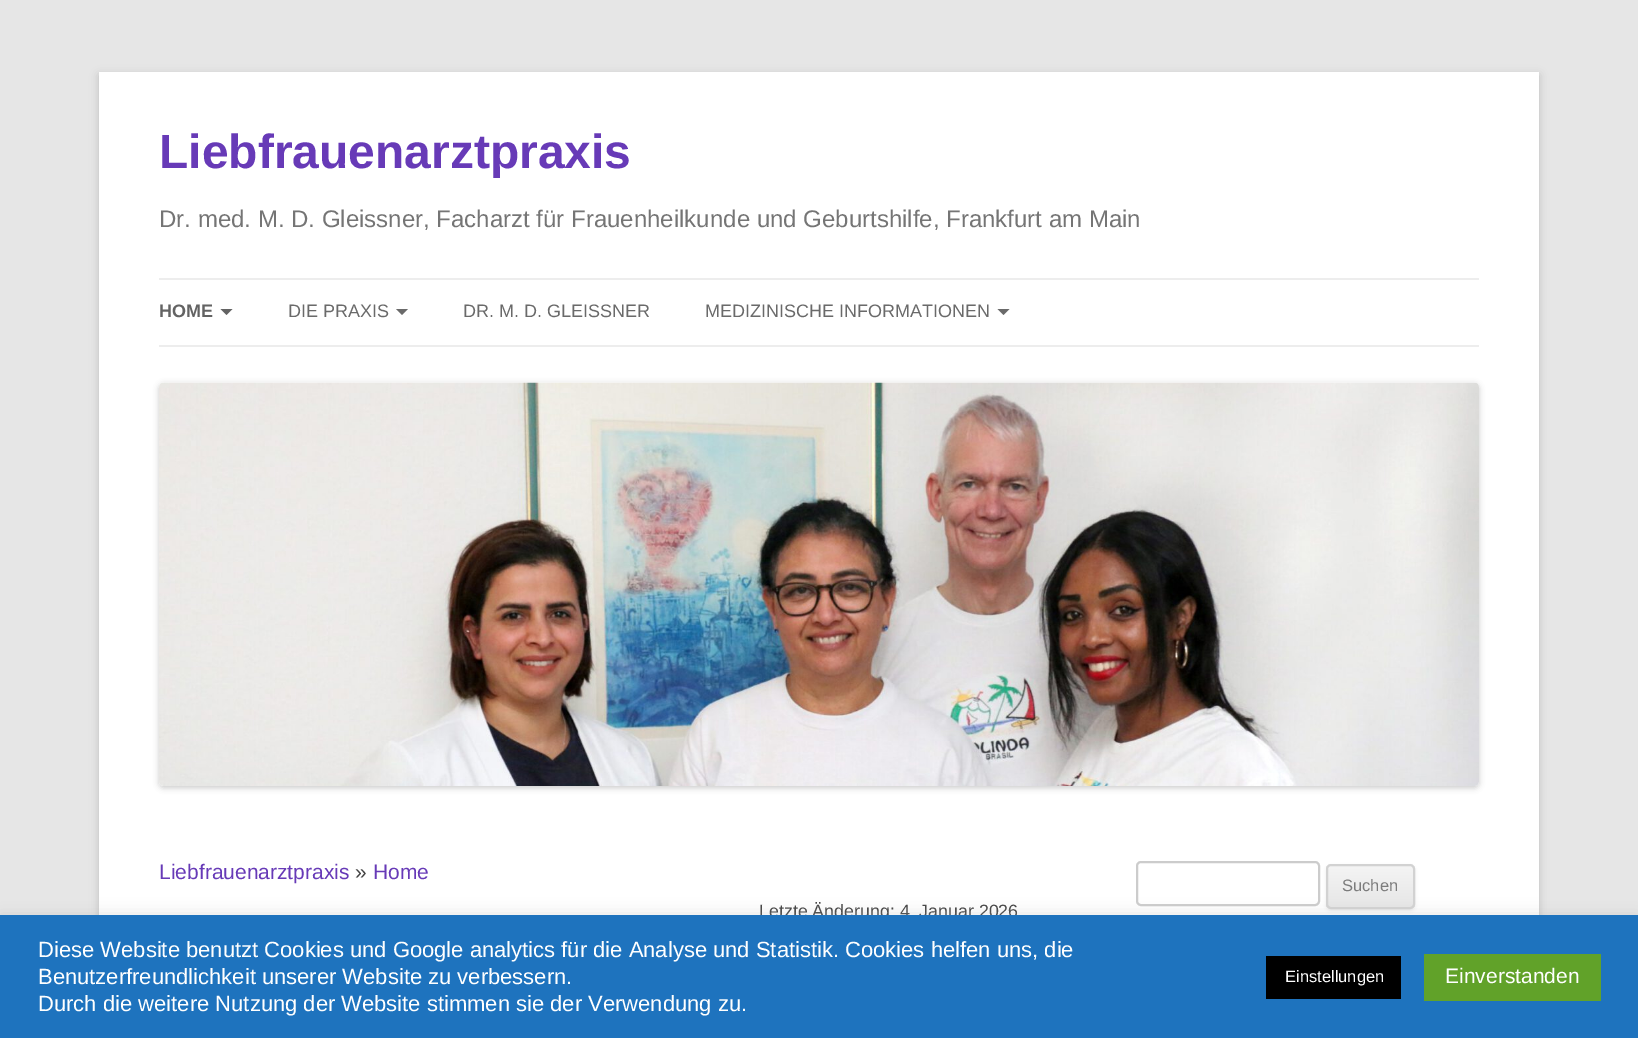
%!PS-Adobe-3.0
%%BoundingBox: 0 0 1638 1038
%%LanguageLevel: 3
%%Pages: 1
%%EndComments
%%BeginProlog
/setink { 3 { 255 div 3 1 roll } repeat setrgbcolor } def
/usefont { [ exch dup neg 0 0 3 -1 roll 0 0 ] selectfont } def
/drawtext { setink usefont moveto show } def
/fillbox { setink rectfill } def
/setalpha { dup .setfillconstantalpha .setstrokeconstantalpha } def
/rrect { 5 dict begin { /r /h /w /y /x } { exch def } forall
  x r add y moveto x w add y 2 copy h add r arct x w add y h add x 1 index r arct
  x y h add x y r arct x y 2 copy exch w add exch r arct closepath end } def
/softshadow { 12 dict begin { /a /b /q /h /w /y /x } { exch def } forall gsave /was 0 def
  9 -2 -9 { dup b mul 4 div /e exch def 1 sub .425 mul 2.718 exch exp 1 add a .99 .min exch div /now exch def
    1 1 now sub 1 was sub div sub setalpha /was now def
    w h .min e 2 mul add 0 gt { x e sub y e sub w e 2 mul add h e 2 mul add
      q e add b .6 mul add w h .min 2 div e add .min 0 .max rrect fill } if } for grestore end } def
/drawimage { 5 dict begin { /h /w /y /x /name } { exch def } forall
  gsave x y translate w h scale
  w h 8 [w 0 0 h 0 0] name (r) file false 3 colorimage grestore end } def
%%EndProlog
%%BeginSetup
<< /PageSize [1638 1038] /PageUsesTransparency true >> setpagedevice
%%EndSetup
%%Page: 1 1
0 .pushpdf14devicefilter
0 1038 translate 1 -1 scale
4 setmiterlimit
0 0 1638 1038 230 230 230 fillbox
100 100 100 setink
99 75 1440 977 0 4.5 0.3 softshadow
99 72 1440 843 255 255 255 fillbox
(Liebfrauenarztpraxis) 159 168 /LiberationSans-Bold 48 103 58 183 drawtext
(Dr. med. M. D. Gleissner, Facharzt für Frauenheilkunde und Geburtshilfe, Frankfurt am Main) 159 227 /LiberationSans-Regular 24 117 117 117 drawtext
159 278 1320 2 237 237 237 fillbox
159 345 1320 2 237 237 237 fillbox
(HOME) 159 317 /LiberationSans-Bold 18 99 99 99 drawtext
220.5 309 moveto 232.5 309 lineto 226.5 315 lineto closepath fill
(DIE PRAXIS) 288 317 /LiberationSans-Regular 18 106 106 106 drawtext
396 309 moveto 408 309 lineto 402 315 lineto closepath fill
(DR. M. D. GLEISSNER) 463 317 /LiberationSans-Regular 18 106 106 106 drawtext
(MEDIZINISCHE INFORMATIONEN) 705 317 /LiberationSans-Regular 18 106 106 106 drawtext
997.5 309 moveto 1009.5 309 lineto 1003.5 315 lineto closepath fill
0 0 0 setink
159 384 1320 404 5 3 0.2 softshadow
(assets/img1.rgb) 159 382 1320 404 drawimage
(Liebfrauenarztpraxis) 159 879 /LiberationSans-Regular 21 103 58 183 drawtext
(») 355 879 /LiberationSans-Regular 21 68 68 68 drawtext
(Home) 373 879 /LiberationSans-Regular 21 103 58 183 drawtext
(Letzte Änderung: 4. Januar 2026) 759 917 /LiberationSans-Regular 17.8 68 68 68 drawtext
204 204 204 setink
2 setlinewidth
1137 862 182 43 4 rrect stroke
64 64 64 setink
1326 866 89 45 5 1.5 0.1 softshadow
gsave
1326 864 89 45 5 rrect clip newpath
gsave 1326 866 moveto 1415 866 lineto 1415 908 lineto 1326 908 lineto closepath clip newpath
<< /ShadingType 2 /ColorSpace /DeviceRGB /Coords [1370 866 1370 908] /Extend [true true] /Function << /FunctionType 2 /Domain [0 1] /C0 [0.957 0.957 0.957] /C1 [0.902 0.902 0.902] /N 1 >> >> shfill grestore
grestore
210 210 210 setink
1327 865 87 43 4 rrect stroke
(Suchen) 1342 891 /LiberationSans-Regular 16.5 124 124 124 drawtext
172 171 171 setink
0 914 1638 123 0 7.5 0.3 softshadow
0 915 1638 123 30 115 190 fillbox
(Diese Website benutzt Cookies und Google analytics für die Analyse und Statistik. Cookies helfen uns, die) 38 957 /LiberationSans-Regular 22 255 255 255 drawtext
(Benutzerfreundlichkeit unserer Website zu verbessern.) 38 984 /LiberationSans-Regular 22 255 255 255 drawtext
(Durch die weitere Nutzung der Website stimmen sie der Verwendung zu.) 38 1011 /LiberationSans-Regular 22 255 255 255 drawtext
1266 956 135 43 0 0 0 fillbox
(Einstellungen) 1285 982 /LiberationSans-Regular 16.5 255 255 255 drawtext
1424 954 177 47 97 162 41 fillbox
(Einverstanden) 1445 983 /LiberationSans-Regular 21 255 255 255 drawtext
.poppdf14devicefilter showpage
%%EOF
